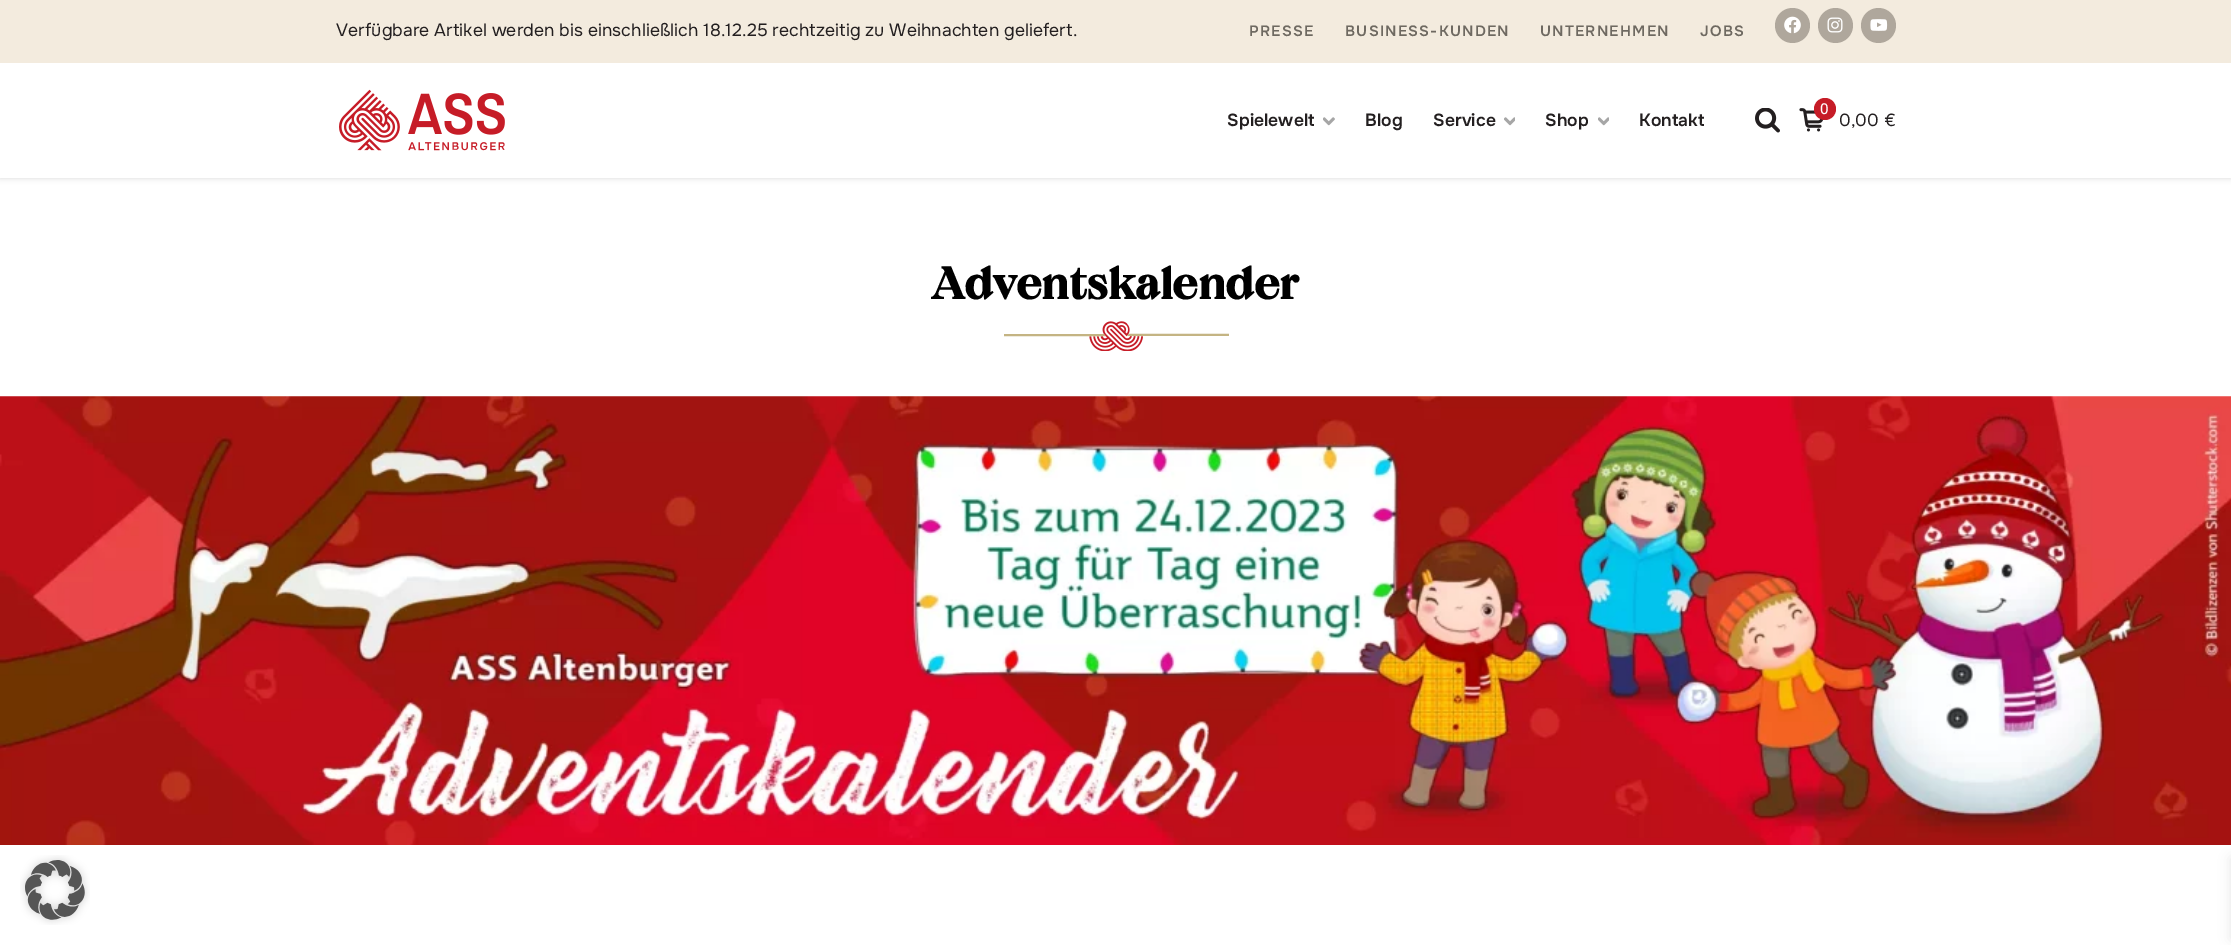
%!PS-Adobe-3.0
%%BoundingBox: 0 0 2231 945
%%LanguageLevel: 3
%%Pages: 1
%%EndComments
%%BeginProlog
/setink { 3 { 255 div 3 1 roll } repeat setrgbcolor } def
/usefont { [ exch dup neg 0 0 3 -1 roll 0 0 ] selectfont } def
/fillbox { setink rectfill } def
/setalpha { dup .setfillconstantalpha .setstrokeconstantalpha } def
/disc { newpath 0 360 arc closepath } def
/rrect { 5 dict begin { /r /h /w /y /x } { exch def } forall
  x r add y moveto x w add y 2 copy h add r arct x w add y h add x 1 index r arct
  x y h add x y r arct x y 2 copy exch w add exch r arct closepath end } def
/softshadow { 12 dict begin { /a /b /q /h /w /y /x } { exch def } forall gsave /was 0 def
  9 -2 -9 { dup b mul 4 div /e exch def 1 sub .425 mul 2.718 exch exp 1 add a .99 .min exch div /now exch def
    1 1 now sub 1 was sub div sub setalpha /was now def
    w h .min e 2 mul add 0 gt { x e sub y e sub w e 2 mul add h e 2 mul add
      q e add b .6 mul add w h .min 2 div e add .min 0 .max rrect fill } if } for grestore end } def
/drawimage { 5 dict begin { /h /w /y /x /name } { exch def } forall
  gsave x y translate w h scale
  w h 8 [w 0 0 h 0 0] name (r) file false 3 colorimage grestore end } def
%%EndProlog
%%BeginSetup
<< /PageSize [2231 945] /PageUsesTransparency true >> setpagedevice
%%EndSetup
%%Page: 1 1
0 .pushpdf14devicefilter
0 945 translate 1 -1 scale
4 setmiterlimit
0 0 2231 945 255 255 255 fillbox
0 0 0 setink
0 63 2231 115 0 3 0.15 softshadow
0 0 2231 63 243 235 222 fillbox
/Onest-Regular 17.5 usefont
35 31 32 setink
336 36 moveto 0.12 0 (Verfügbare Artikel werden bis einschließlich 18.12.25 rechtzeitig zu Weihnachten geliefert.) ashow
/Onest-SemiBold 15 usefont
110 105 97 setink
1249 36 moveto 1.25 0 (PRESSE) ashow
1345 36 moveto 1.25 0 (BUSINESS-KUNDEN) ashow
1540 36 moveto 1.25 0 (UNTERNEHMEN) ashow
1700 36 moveto 1.25 0 (JOBS) ashow
175 167 156 setink
1792.5 25.5 17.5 disc fill
(assets/img1.rgb) 1784 16 17 18 drawimage
1835.5 25.5 17.5 disc fill
(assets/img2.rgb) 1827 17 16 16 drawimage
1878.5 25.5 17.5 disc fill
(assets/img3.rgb) 1870 19 18 12 drawimage
0 63 2231 115 255 255 255 fillbox
(assets/img4.rgb) 339 89 166 62 drawimage
/Onest-SemiBold 17.5 usefont
35 31 32 setink
1227 126 moveto 0.12 0 (Spielewelt) ashow
(assets/img5.rgb) 1323 117 12 9 drawimage
1365 126 moveto 0.12 0 (Blog) ashow
1433 126 moveto 0.12 0 (Service) ashow
(assets/img6.rgb) 1504 117 11 9 drawimage
1545 126 moveto 0.12 0 (Shop) ashow
(assets/img7.rgb) 1598 117 11 9 drawimage
1639 126 moveto 0.12 0 (Kontakt) ashow
(assets/img8.rgb) 1755 108 25 25 drawimage
(assets/img9.rgb) 1799 108 25 24 drawimage
198 28 39 setink
1825 109 11 disc fill
/OpenSans-Medium 15 usefont
255 255 255 setink
1820 114 moveto 0.12 0 (0) ashow
/Onest-Regular 17.5 usefont
35 31 32 setink
1839 126 moveto 0.12 0 (0,00 €) ashow
/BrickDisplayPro-Bold 45 usefont
0 0 0 setink
931 299 moveto -0.25 0 (Adventskalender) ashow
(assets/img10.rgb) 1004 321 225 30 drawimage
(assets/img11.rgb) 0 396 2231 449 drawimage
(assets/img12.rgb) 20 855 70 70 drawimage
2231 858 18 81 0 6 0.1 softshadow
.poppdf14devicefilter showpage
%%EOF
